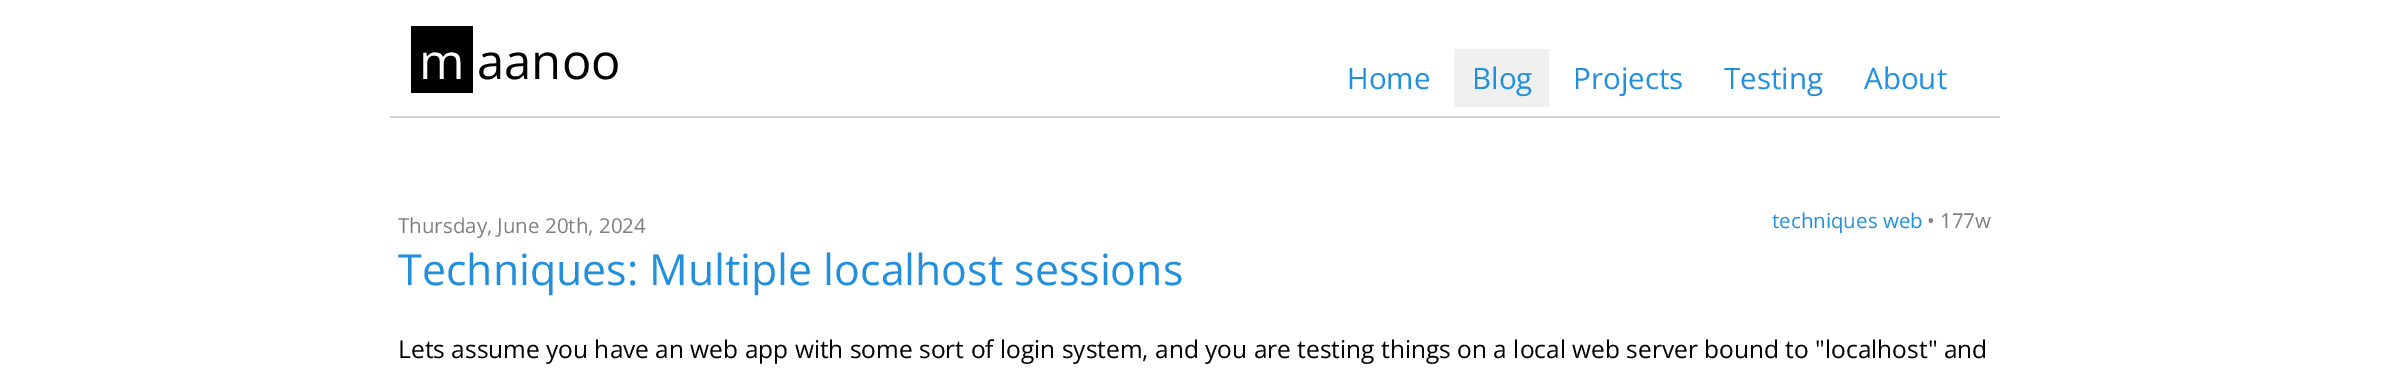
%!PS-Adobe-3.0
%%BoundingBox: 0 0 2388 382
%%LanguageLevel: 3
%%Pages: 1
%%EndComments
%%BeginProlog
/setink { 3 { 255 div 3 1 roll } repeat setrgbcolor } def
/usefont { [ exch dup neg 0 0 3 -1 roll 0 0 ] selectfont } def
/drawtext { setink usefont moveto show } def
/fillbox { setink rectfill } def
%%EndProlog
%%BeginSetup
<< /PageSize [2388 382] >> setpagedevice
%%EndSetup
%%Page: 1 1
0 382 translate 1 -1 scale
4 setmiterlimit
0 0 2388 382 255 255 255 fillbox
411 26 62 67 0 0 0 fillbox
(m) 419 79 /OpenSans-Regular 49 255 255 255 drawtext
(aanoo) 477 79 /OpenSans-Regular 49 0 0 0 drawtext
390 116 1610 2 211 211 211 fillbox
(Home) 1347 89 /OpenSans-Regular 29.5 33 143 222 drawtext
1454 49 95 58 240 240 240 fillbox
(Blog) 1472 89 /OpenSans-Regular 29.5 33 143 222 drawtext
(Projects) 1573 89 /OpenSans-Regular 29.5 33 143 222 drawtext
(Testing) 1724 89 /OpenSans-Regular 29.5 33 143 222 drawtext
(About) 1864 89 /OpenSans-Regular 29.5 33 143 222 drawtext
(Thursday, June 20th, 2024) 398 233 /OpenSans-Regular 20.5 128 128 128 drawtext
(techniques web) 1772 228 /OpenSans-Regular 20.5 33 143 222 drawtext
(• 177w) 1927 228 /OpenSans-Regular 20.5 128 128 128 drawtext
(Techniques: Multiple localhost sessions) 398 285 /OpenSans-Regular 42.9 33 143 222 drawtext
(Lets assume you have an web app with some sort of login system, and you are testing things on a local web server bound to "localhost" and) 398 358 /OpenSans-Regular 24.5 0 0 0 drawtext
showpage
%%EOF
